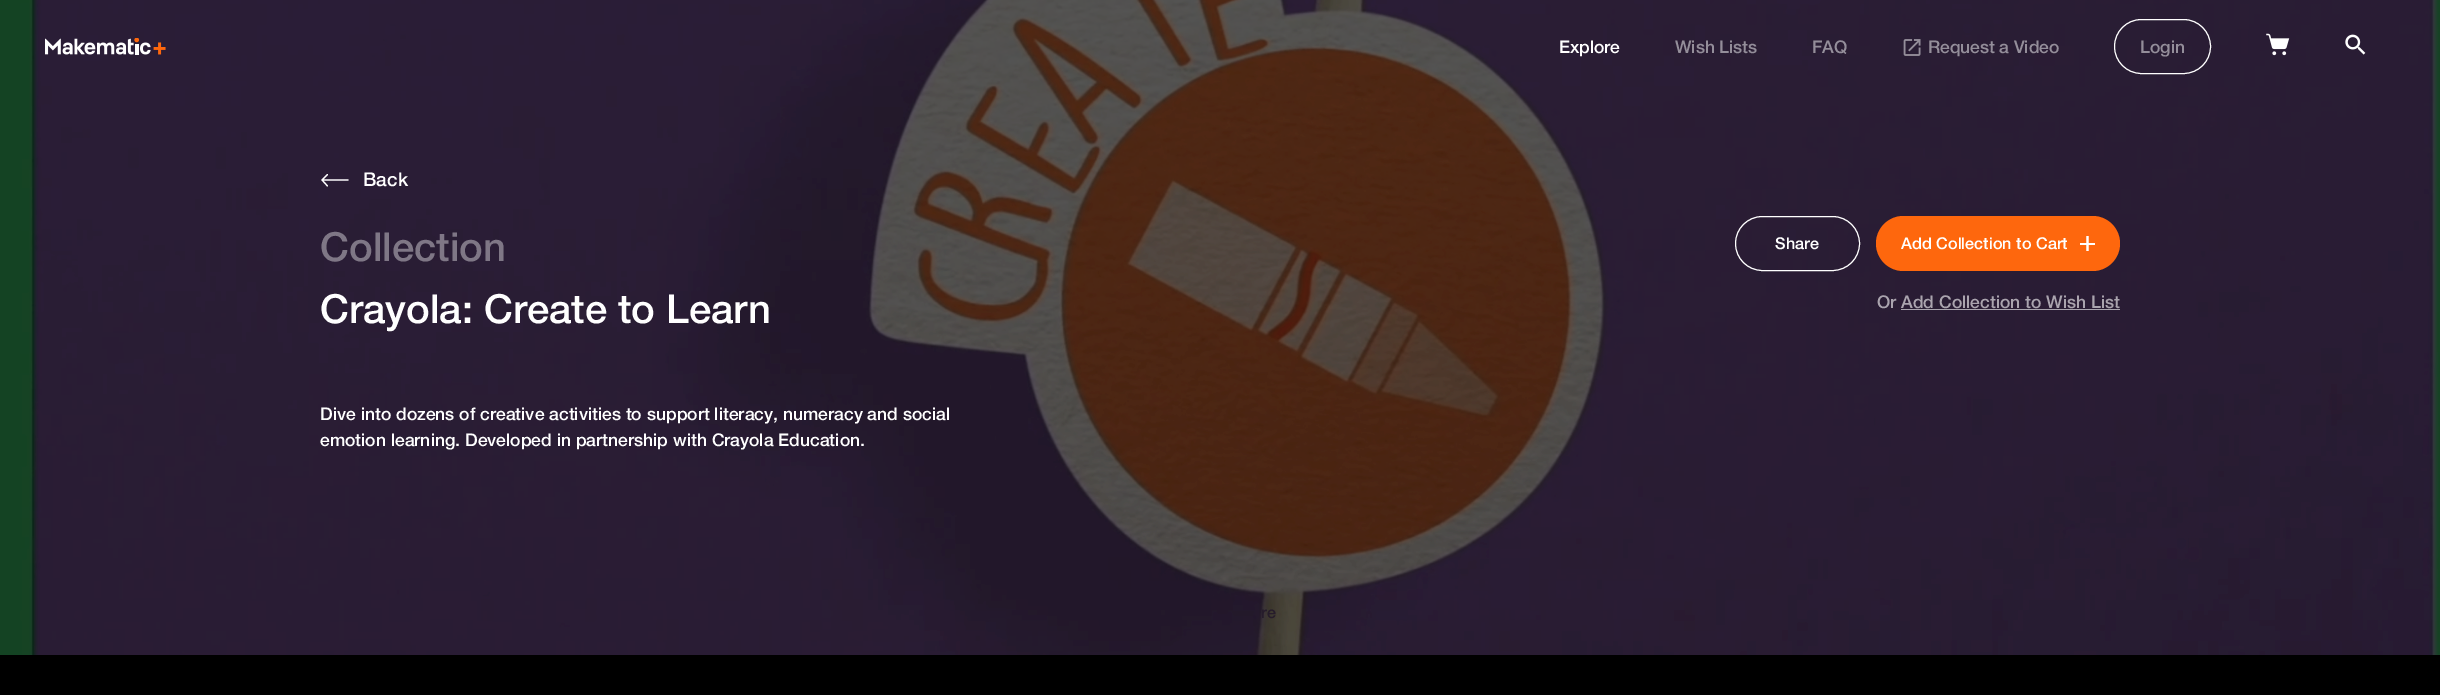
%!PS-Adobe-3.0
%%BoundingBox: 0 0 2440 695
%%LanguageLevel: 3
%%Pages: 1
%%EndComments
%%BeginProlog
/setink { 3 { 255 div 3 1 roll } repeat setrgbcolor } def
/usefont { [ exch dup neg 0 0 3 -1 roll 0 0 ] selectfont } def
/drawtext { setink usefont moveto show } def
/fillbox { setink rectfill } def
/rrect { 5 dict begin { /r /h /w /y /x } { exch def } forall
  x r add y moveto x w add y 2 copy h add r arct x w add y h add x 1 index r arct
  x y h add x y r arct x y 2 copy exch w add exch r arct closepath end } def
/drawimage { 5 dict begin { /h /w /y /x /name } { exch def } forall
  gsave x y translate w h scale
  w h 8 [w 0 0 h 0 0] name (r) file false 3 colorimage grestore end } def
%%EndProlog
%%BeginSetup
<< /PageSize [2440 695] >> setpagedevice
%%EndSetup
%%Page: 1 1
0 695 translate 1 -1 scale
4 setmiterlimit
0 0 2440 695 0 0 0 fillbox
0 0 2440 655 18 18 18 fillbox
(assets/img5.rgb) 0 0 2440 655 drawimage
(assets/img1.rgb) 45 38 121 17 drawimage
/HelveticaNeue-Medium 17.5 usefont
255 255 255 setink
1559 53 moveto -0.1 0 (Explore) ashow
148 142 154 setink
1675 53 moveto -0.1 0 (Wish Lists) ashow
1812 53 moveto -0.1 0 (FAQ) ashow
(assets/img2.rgb) 1903 39 18 17 drawimage
1928 53 moveto -0.1 0 (Request a Video) ashow
255 255 255 setink
2114.5 19.5 96 54 27 rrect stroke
148 142 154 setink
2140 53 moveto -0.1 0 (Login) ashow
(assets/img3.rgb) 2266 33 24 23 drawimage
(assets/img4.rgb) 2345 34 21 21 drawimage
255 255 255 setink
1.2 setlinewidth
1 setlinecap
1 setlinejoin
327.5 186 moveto 322 180 lineto 327.5 174.5 lineto 322 180 moveto 348 180 lineto stroke
(Back) 363 186 /HelveticaNeue-Medium 19 255 255 255 drawtext
(Collection) 320 261 /HelveticaNeue-Medium 40 127 119 134 drawtext
(Crayola: Create to Learn) 320 323 /HelveticaNeue-Medium 40 255 255 255 drawtext
(Dive into dozens of creative activities to support literacy, numeracy and social) 320 420 /HelveticaNeue-Medium 17.5 255 255 255 drawtext
(emotion learning. Developed in partnership with Crayola Education.) 320 446 /HelveticaNeue-Medium 17.5 255 255 255 drawtext
1 setlinewidth
0 setlinecap
0 setlinejoin
1735.5 216.5 124 54 27 rrect stroke
(Share) 1775 249 /HelveticaNeue-Medium 16.25 255 255 255 drawtext
254 103 13 setink
1876 216 244 55 27.5 rrect fill
(Add Collection to Cart) 1901 249 /HelveticaNeue-Medium 16.25 255 255 255 drawtext
2.2 setlinewidth
1 setlinejoin
2087.5 236 moveto 2087.5 251 lineto stroke
2080 243 15 2 255 255 255 fillbox
(Or) 1877 308 /HelveticaNeue-Medium 17.5 170 164 174 drawtext
(Add Collection to Wish List) 1901 308 /HelveticaNeue-Medium 17.5 170 164 174 drawtext
1901 309 219 1 169 164 174 fillbox
(re) 1261 618 /HelveticaNeue-Medium 16.25 38 28 43 drawtext
showpage
%%EOF
